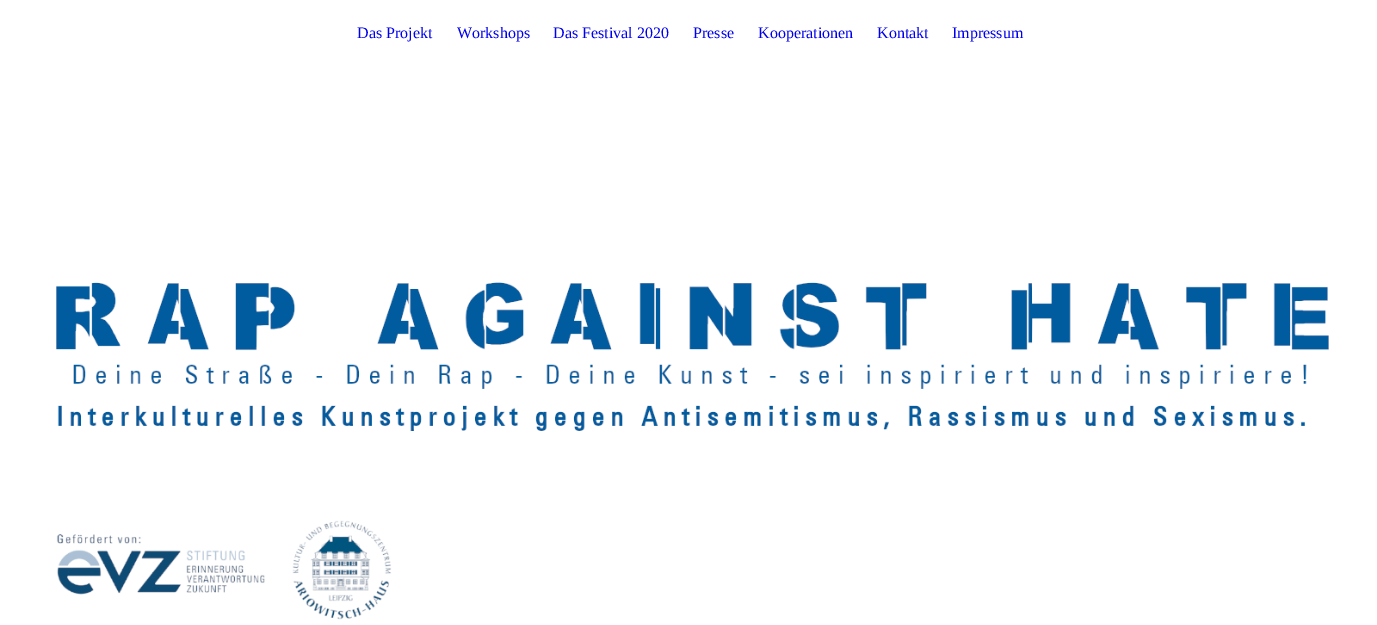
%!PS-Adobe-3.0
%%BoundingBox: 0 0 1377 625
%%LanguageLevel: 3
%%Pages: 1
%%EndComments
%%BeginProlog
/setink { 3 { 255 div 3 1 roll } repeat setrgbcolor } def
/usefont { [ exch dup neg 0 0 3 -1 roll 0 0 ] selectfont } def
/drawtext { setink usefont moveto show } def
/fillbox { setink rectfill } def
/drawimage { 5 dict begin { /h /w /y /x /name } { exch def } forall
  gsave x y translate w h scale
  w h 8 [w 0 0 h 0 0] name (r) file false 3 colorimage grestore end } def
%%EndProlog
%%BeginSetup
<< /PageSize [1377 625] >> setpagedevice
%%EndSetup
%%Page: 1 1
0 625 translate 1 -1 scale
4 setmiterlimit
0 0 1377 625 255 255 255 fillbox
(Das Projekt) 357 38 /LiberationSerif-Regular 16 0 0 238 drawtext
(Workshops) 457 38 /LiberationSerif-Regular 16 0 0 238 drawtext
(Das Festival 2020) 553 38 /LiberationSerif-Regular 16 0 0 238 drawtext
(Presse) 693 38 /LiberationSerif-Regular 16 0 0 238 drawtext
(Kooperationen) 758 38 /LiberationSerif-Regular 16 0 0 238 drawtext
(Kontakt) 877 38 /LiberationSerif-Regular 16 0 0 238 drawtext
(Impressum) 952 38 /LiberationSerif-Regular 16 0 0 238 drawtext
(assets/img1.rgb) 56 282 1273 338 drawimage
showpage
%%EOF
